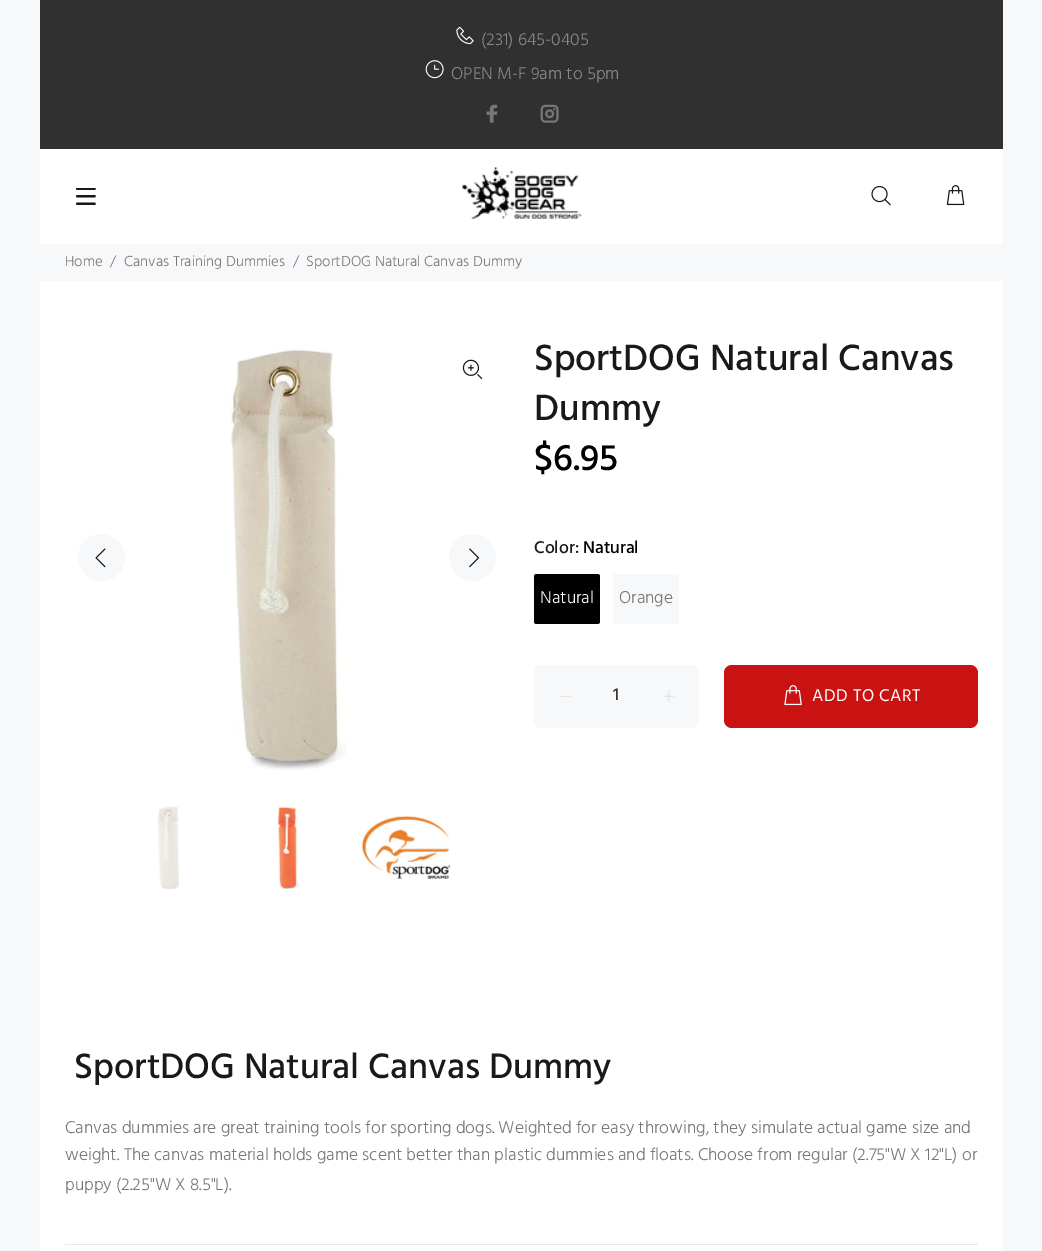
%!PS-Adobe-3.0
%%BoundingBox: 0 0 1042 1251
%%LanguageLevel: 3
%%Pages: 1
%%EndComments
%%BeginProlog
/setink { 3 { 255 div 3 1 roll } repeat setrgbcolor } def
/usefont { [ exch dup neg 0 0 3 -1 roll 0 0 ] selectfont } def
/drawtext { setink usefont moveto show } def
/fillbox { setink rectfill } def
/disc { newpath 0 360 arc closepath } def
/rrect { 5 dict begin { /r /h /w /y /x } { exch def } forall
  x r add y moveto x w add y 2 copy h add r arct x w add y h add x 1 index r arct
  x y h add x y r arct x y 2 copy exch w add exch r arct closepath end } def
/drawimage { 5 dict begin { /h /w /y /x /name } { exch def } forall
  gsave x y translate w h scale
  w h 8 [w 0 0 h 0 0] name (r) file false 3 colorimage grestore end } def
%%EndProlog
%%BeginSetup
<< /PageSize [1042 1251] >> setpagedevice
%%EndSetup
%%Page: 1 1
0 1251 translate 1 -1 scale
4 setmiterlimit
0 0 1042 1251 247 248 250 fillbox
40 149 963 1102 255 255 255 fillbox
40 0 963 149 48 48 48 fillbox
(assets/img1.rgb) 456 26 18 19 drawimage
(\(231\) 645-0405) 481 45 /Hind-Light 17.5 136 136 136 drawtext
(assets/img2.rgb) 425 60 19 19 drawimage
(OPEN M-F 9am to 5pm) 451 79 /Hind-Light 17.5 136 136 136 drawtext
(assets/img3.rgb) 486 104 12 19 drawimage
(assets/img4.rgb) 540 104 19 19 drawimage
(assets/img5.rgb) 75 188 21 17 drawimage
(assets/img6.rgb) 462 167 120 52 drawimage
(assets/img7.rgb) 871 185 20 21 drawimage
(assets/img8.rgb) 946 185 19 21 drawimage
40 244 963 37 247 248 250 fillbox
(Home) 65 266 /Hind-Light 15 119 119 119 drawtext
(/) 110 266 /Hind-Light 15 119 119 119 drawtext
(Canvas Training Dummies) 124 266 /Hind-Light 15 119 119 119 drawtext
(/) 293 266 /Hind-Light 15 119 119 119 drawtext
(SportDOG Natural Canvas Dummy) 306 266 /Hind-Light 15 119 119 119 drawtext
(assets/img9.rgb) 230 348 117 422 drawimage
(assets/img10.rgb) 462 359 21 21 drawimage
247 248 250 setink
101.5 557.5 23.5 disc fill
(assets/img11.rgb) 95 548 11 20 drawimage
472.5 557.5 23.5 disc fill
(assets/img12.rgb) 469 548 11 20 drawimage
(assets/img13.rgb) 157 806 24 84 drawimage
(assets/img14.rgb) 277 806 22 83 drawimage
(assets/img15.rgb) 361 815 90 64 drawimage
(SportDOG Natural Canvas) 534 370 /Hind-Medium 37.5 25 25 25 drawtext
(Dummy) 534 420 /Hind-Medium 37.5 25 25 25 drawtext
($6.95) 534 470 /Hind-Medium 37.5 0 0 0 drawtext
(Color:) 534 553 /Hind-Medium 17.5 25 25 25 drawtext
(Natural) 583 553 /Hind-Medium 17.5 0 0 0 drawtext
534 574 66 50 2.5 rrect fill
(Natural) 540 603 /Hind-Light 17.5 255 255 255 drawtext
247 248 250 setink
613 574 66 50 2.5 rrect fill
(Orange) 619 603 /Hind-Light 17.5 119 119 119 drawtext
247 248 250 setink
534 665 165 63 8 rrect fill
216 216 216 setink
570.5 696 moveto 570.5 696.5 lineto 559.5 696.5 lineto 560 696 lineto closepath fill
(1) 613 700 /Hind-Medium 17.5 51 51 51 drawtext
(assets/img16.rgb) 663 690 12 12 drawimage
201 18 18 setink
724 665 254 63 8 rrect fill
(assets/img17.rgb) 784 685 18 21 drawimage
/Hind-Regular 17.5 usefont
255 255 255 setink
812 701 moveto 0.5 0 (ADD TO CART) ashow
(SportDOG Natural Canvas Dummy) 74 1078 /Hind-Medium 36.25 25 25 25 drawtext
(Canvas dummies are great training tools for sporting dogs. Weighted for easy throwing, they simulate actual game size and) 65 1133 /Hind-Light 17.5 119 119 119 drawtext
(weight. The canvas material holds game scent better than plastic dummies and floats. Choose from regular \(2.75"W X 12"L\) or) 65 1160 /Hind-Light 17.5 119 119 119 drawtext
(puppy \(2.25"W X 8.5"L\).) 65 1190 /Hind-Light 17.5 119 119 119 drawtext
65 1244 913 1 233 231 231 fillbox
showpage
%%EOF
